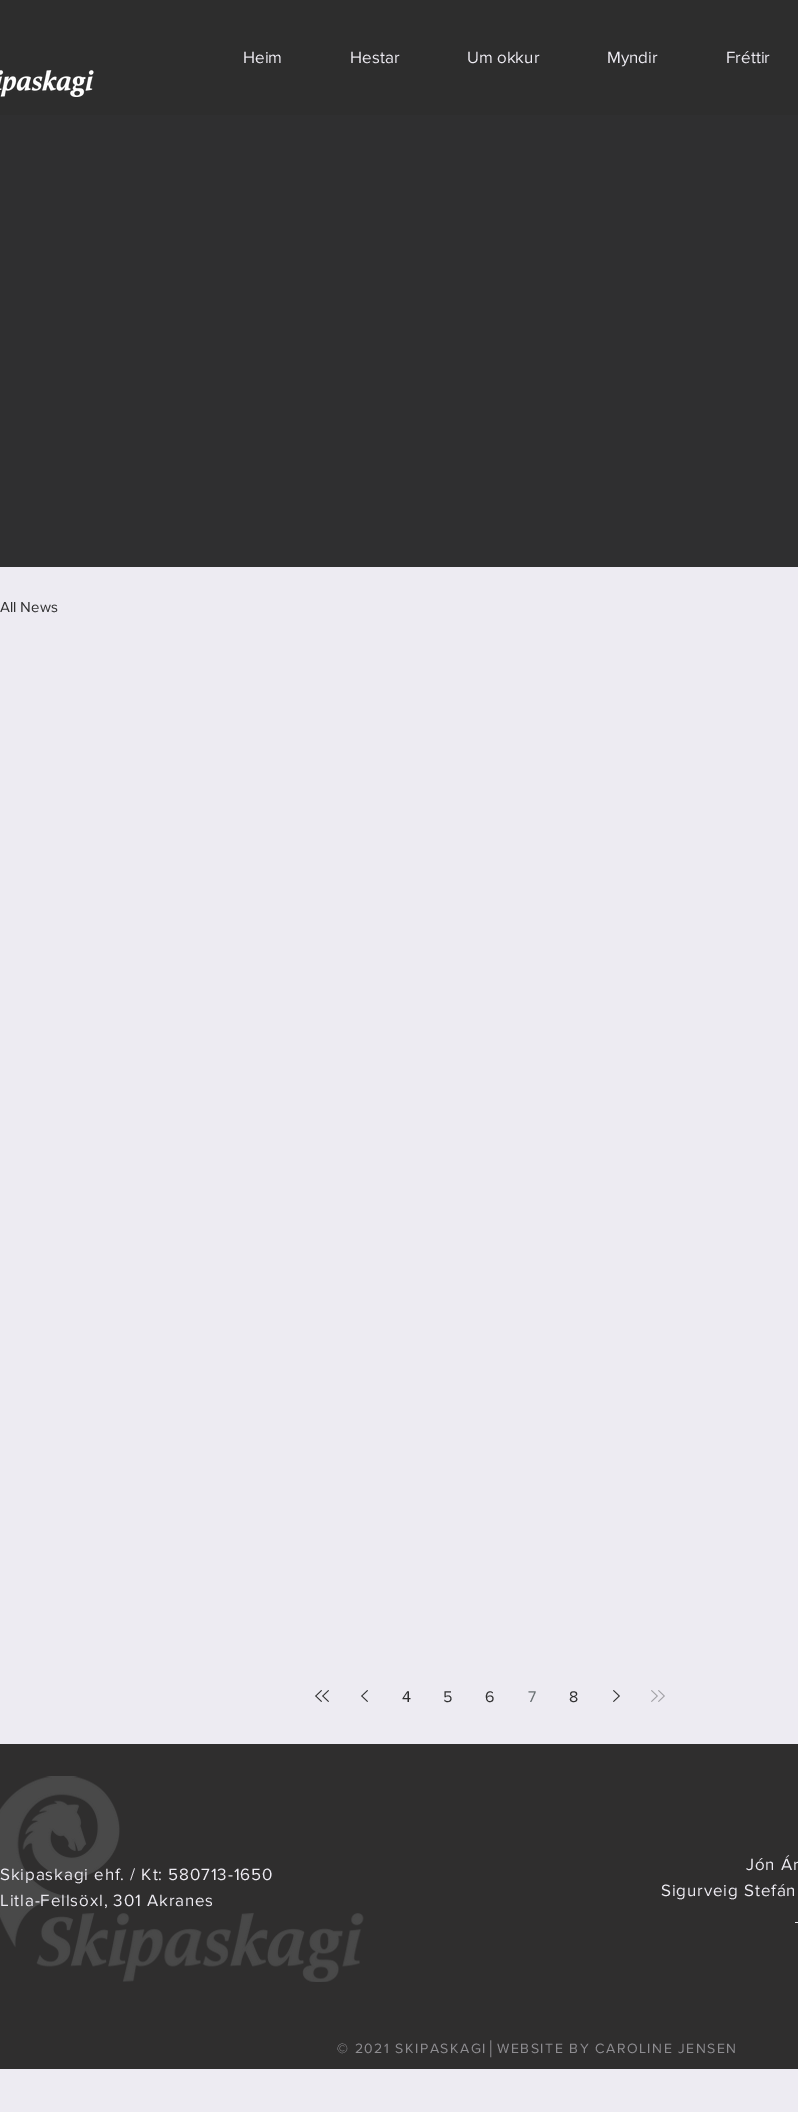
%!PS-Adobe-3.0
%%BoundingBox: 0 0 798 2112
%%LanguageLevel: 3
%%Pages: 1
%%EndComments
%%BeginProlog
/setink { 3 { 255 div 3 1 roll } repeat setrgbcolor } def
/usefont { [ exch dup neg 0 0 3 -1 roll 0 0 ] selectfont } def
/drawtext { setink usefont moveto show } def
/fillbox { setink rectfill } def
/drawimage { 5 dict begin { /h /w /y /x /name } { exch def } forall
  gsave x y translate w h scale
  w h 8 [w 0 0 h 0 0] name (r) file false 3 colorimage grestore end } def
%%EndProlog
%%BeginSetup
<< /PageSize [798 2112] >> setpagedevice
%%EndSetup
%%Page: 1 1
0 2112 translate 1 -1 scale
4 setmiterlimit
0 0 798 2112 237 235 242 fillbox
0 0 798 115 45 45 45 fillbox
(Heim) 243 63 /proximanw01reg-Regular 17 237 235 242 drawtext
(Hestar) 350 63 /proximanw01reg-Regular 17 237 235 242 drawtext
(Um okkur) 467 63 /proximanw01reg-Regular 17 237 235 242 drawtext
(Myndir) 607 63 /proximanw01reg-Regular 17 237 235 242 drawtext
(Fréttir) 726 63 /proximanw01reg-Regular 17 237 235 242 drawtext
(assets/img1.rgb) 0 70 94 27 drawimage
0 115 798 452 47 47 48 fillbox
(All News) 0 612 /proximanw01reg-Regular 15 47 47 48 drawtext
(assets/img2.rgb) 315 1690 7 12 drawimage
(assets/img2.rgb) 322 1690 7 12 drawimage
(assets/img2.rgb) 361 1690 7 12 drawimage
(4) 402 1702 /proximanw01reg-Regular 16 47 47 48 drawtext
(5) 443 1702 /proximanw01reg-Regular 16 47 47 48 drawtext
(6) 485 1702 /proximanw01reg-Regular 16 47 47 48 drawtext
(7) 528 1702 /proximanw01reg-Regular 16 103 110 113 drawtext
(8) 569 1702 /proximanw01reg-Regular 16 47 47 48 drawtext
(assets/img3.rgb) 613 1690 7 12 drawimage
(assets/img4.rgb) 651 1690 7 12 drawimage
(assets/img4.rgb) 658 1690 7 12 drawimage
0 1744 798 325 47 46 46 fillbox
(assets/img5.rgb) 0 1776 364 206 drawimage
/proximanw01reg-Regular 17 usefont
237 235 242 setink
746 1870 moveto 0.85 0 (Jón Ár) ashow
661 1896 moveto 0.85 0 (Sigurveig Stefán) ashow
795 1922 3 1 237 235 242 fillbox
0 1880 moveto 0.85 0 (Skipaskagi ehf. / Kt: 580713-1650) ashow
0 1906 moveto 0.85 0 (Litla-Fellsöxl, 301 Akranes) ashow
/proximanw01reg-Regular 14 usefont
142 141 145 setink
337 2053 moveto 1.5 0 (© 2021 SKIPASKAGI) ashow
/LiberationSans-Regular 14 usefont
487 2053 moveto 1.5 0 (│) ashow
/proximanw01reg-Regular 14 usefont
497 2053 moveto 1.5 0 (WEBSITE BY CAROLINE JENSEN) ashow
showpage
%%EOF
